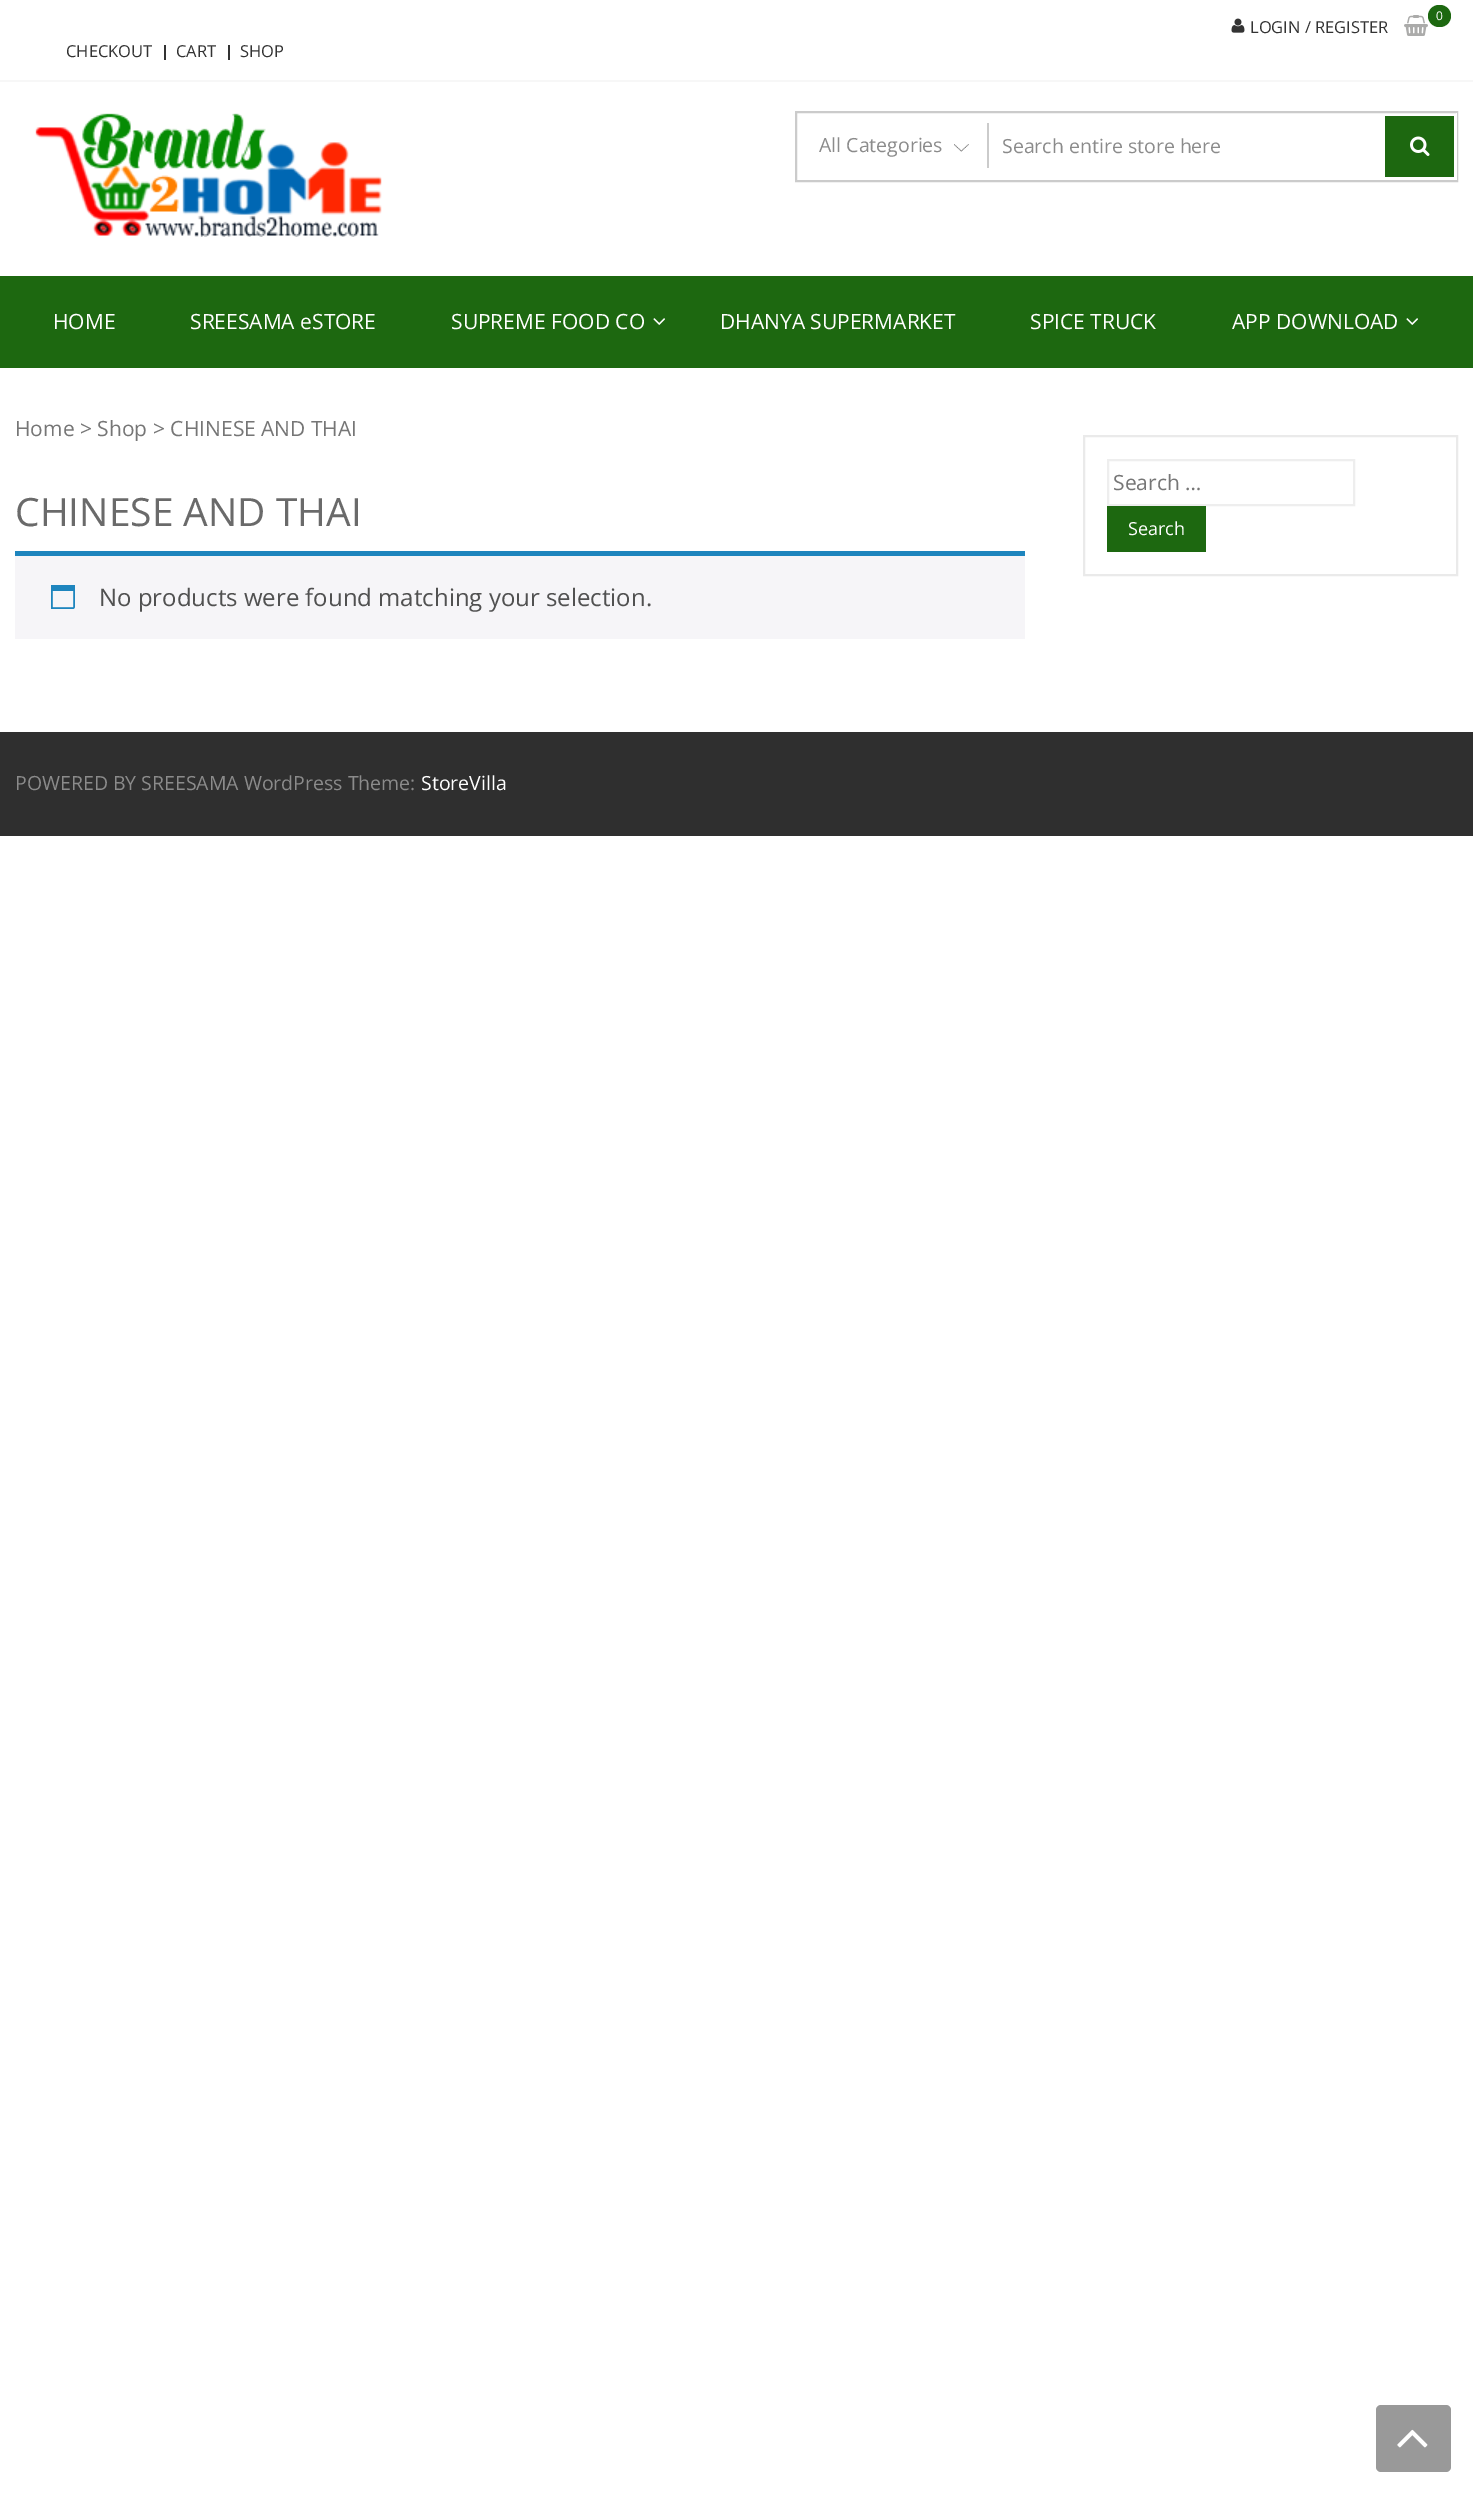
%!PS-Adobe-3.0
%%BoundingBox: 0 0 1473 2494
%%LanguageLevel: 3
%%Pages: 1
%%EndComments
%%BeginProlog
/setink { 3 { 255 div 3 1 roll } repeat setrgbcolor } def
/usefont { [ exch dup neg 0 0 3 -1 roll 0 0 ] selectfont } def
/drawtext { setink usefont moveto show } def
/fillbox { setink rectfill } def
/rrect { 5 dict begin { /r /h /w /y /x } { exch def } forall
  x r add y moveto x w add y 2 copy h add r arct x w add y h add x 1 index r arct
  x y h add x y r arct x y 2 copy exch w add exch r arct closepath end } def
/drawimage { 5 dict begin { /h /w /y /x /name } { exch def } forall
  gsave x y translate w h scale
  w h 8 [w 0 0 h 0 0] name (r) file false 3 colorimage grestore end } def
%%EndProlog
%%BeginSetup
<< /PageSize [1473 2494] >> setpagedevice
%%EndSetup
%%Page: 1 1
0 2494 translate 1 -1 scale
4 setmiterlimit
0 0 1473 2494 255 255 255 fillbox
0 80 1473 2 247 247 247 fillbox
(assets/img1.rgb) 1404 15 24 21 drawimage
29 104 16 setink
1428 5 23 22 11 rrect fill
(0) 1436 20 /OpenSans-Regular 12 255 255 255 drawtext
(assets/img2.rgb) 1231 18 14 15 drawimage
(LOGIN / REGISTER) 1250 33 /OpenSans-Regular 16.5 51 51 51 drawtext
(CHECKOUT) 66 57 /OpenSans-Regular 16.5 51 51 51 drawtext
164 45 2 15 51 51 51 fillbox
(CART) 176 57 /OpenSans-Regular 16.5 51 51 51 drawtext
228 45 2 15 51 51 51 fillbox
(SHOP) 240 57 /OpenSans-Regular 16.5 51 51 51 drawtext
(assets/img3.rgb) 35 113 347 124 drawimage
203 203 203 setink
2 setlinewidth
796 112 661 69 rectstroke
(assets/img4.rgb) 954 144 15 8 drawimage
(All Categories) 819 152 /OpenSans-Regular 19.5 139 139 139 drawtext
987 123 2 45 203 203 203 fillbox
1456 113 1 67 255 255 255 fillbox
(Search entire store here) 1002 153 /OpenSans-Regular 19.5 139 139 139 drawtext
1385 116 69 61 29 104 16 fillbox
(assets/img5.rgb) 1410 136 20 20 drawimage
0 276 1473 92 29 104 16 fillbox
(HOME) 53 329 /OpenSans-Regular 21 255 255 255 drawtext
(SREESAMA eSTORE) 190 329 /OpenSans-Regular 21 255 255 255 drawtext
(SUPREME FOOD CO) 451 329 /OpenSans-Regular 21 255 255 255 drawtext
(assets/img6.rgb) 653 318 12 7 drawimage
(DHANYA SUPERMARKET) 720 329 /OpenSans-Regular 21 255 255 255 drawtext
(SPICE TRUCK) 1030 329 /OpenSans-Regular 21 255 255 255 drawtext
(APP DOWNLOAD) 1232 329 /OpenSans-Regular 21 255 255 255 drawtext
(assets/img6.rgb) 1406 318 12 7 drawimage
(Home) 15 436 /OpenSans-Regular 21 118 118 118 drawtext
(> Shop) 80 436 /OpenSans-Regular 21 118 118 118 drawtext
(> CHINESE AND THAI) 153 436 /OpenSans-Regular 21 118 118 118 drawtext
(CHINESE AND THAI) 15 526 /OpenSans-Regular 39 106 106 106 drawtext
15 556 1010 83 246 245 248 fillbox
15 551 1010 5 30 133 190 fillbox
(assets/img7.rgb) 51 585 24 24 drawimage
(No products were found matching your selection.) 99 606 /OpenSans-Regular 24 81 81 81 drawtext
234 234 234 setink
1084 436 373 139 rectstroke
238 238 238 setink
1108 460 246 45 rectstroke
(Search …) 1113 490 /OpenSans-Regular 21 118 118 118 drawtext
1107 506 99 46 29 104 16 fillbox
(Search) 1128 535 /OpenSans-Regular 18 255 255 255 drawtext
0 732 1473 104 47 47 47 fillbox
(POWERED BY SREESAMA WordPress Theme:) 15 790 /OpenSans-Regular 19.5 139 139 139 drawtext
(StoreVilla) 421 790 /OpenSans-Regular 19.5 255 255 255 drawtext
153 153 153 setink
1376 2405 75 67 5 rrect fill
(assets/img8.rgb) 1397 2429 31 19 drawimage
showpage
%%EOF
